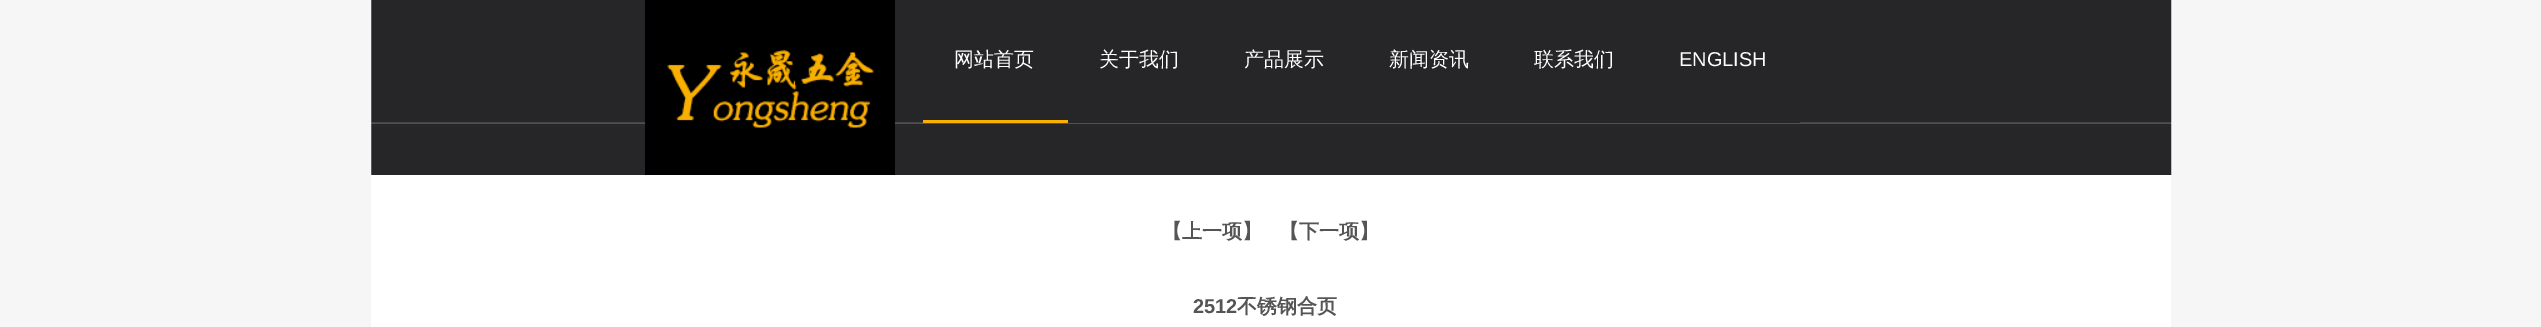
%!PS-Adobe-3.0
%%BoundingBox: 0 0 2541 327
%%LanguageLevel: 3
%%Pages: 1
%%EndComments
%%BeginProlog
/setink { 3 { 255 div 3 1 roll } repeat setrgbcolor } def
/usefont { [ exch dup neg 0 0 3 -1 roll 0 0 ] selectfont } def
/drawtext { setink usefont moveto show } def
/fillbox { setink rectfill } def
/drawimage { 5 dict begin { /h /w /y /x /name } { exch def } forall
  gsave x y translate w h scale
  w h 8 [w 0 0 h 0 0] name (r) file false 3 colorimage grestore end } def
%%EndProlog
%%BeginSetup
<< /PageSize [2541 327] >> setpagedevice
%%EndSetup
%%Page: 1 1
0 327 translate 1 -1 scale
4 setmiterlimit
0 0 2541 327 246 246 246 fillbox
(assets/img1.rgb) 371 0 1801 175 drawimage
(assets/img2.rgb) 645 0 250 175 drawimage
923 120 145 3 249 176 0 fillbox
(网站首页) 954 66 /WenQuanYiZenHei-Medium 20 255 255 255 drawtext
1068 122 732 1 38 38 40 fillbox
(关于我们) 1099 66 /WenQuanYiZenHei-Medium 20 255 255 255 drawtext
(产品展示) 1244 66 /WenQuanYiZenHei-Medium 20 255 255 255 drawtext
(新闻资讯) 1389 66 /WenQuanYiZenHei-Medium 20 255 255 255 drawtext
(联系我们) 1534 66 /WenQuanYiZenHei-Medium 20 255 255 255 drawtext
(ENGLISH) 1679 66 /LiberationSans-Regular 20 255 255 255 drawtext
371 175 1800 152 255 255 255 fillbox
(【上一项】) 1162 238 /WenQuanYiZenHei-Bold 20 85 85 85 drawtext
(【下一项】) 1279 238 /WenQuanYiZenHei-Bold 20 85 85 85 drawtext
(2512) 1193 313 /LiberationSans-Bold 20 85 85 85 drawtext
(不锈钢合页) 1237 313 /WenQuanYiZenHei-Bold 20 85 85 85 drawtext
showpage
%%EOF
